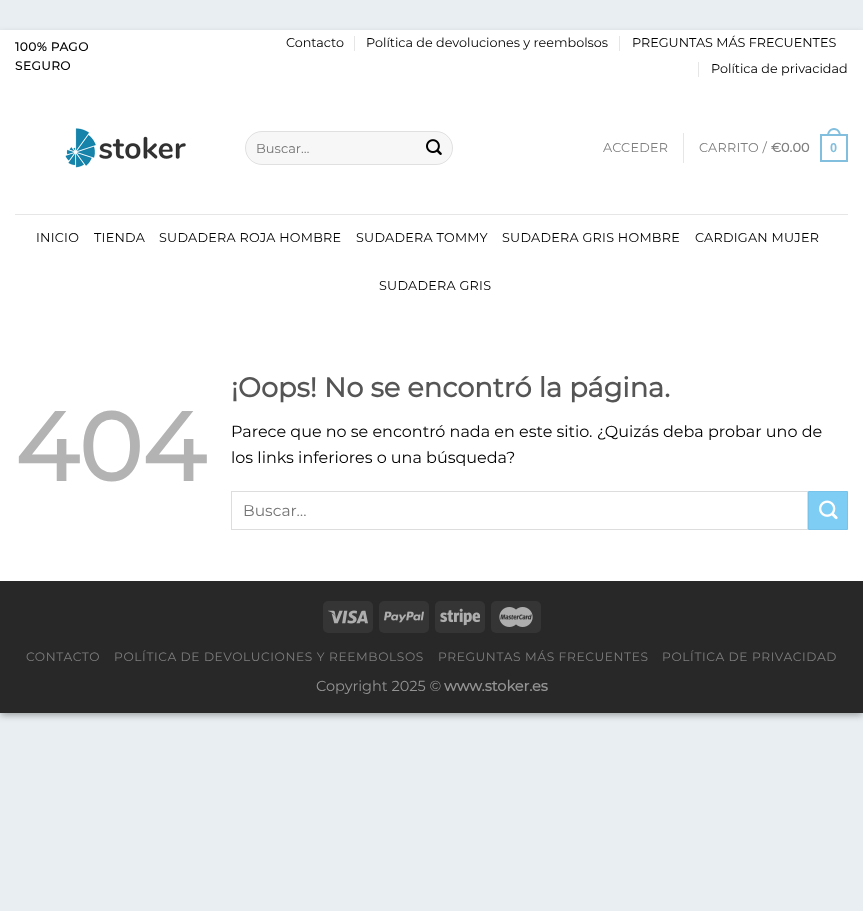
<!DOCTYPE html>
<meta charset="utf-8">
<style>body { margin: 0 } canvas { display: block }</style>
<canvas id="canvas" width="863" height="911"></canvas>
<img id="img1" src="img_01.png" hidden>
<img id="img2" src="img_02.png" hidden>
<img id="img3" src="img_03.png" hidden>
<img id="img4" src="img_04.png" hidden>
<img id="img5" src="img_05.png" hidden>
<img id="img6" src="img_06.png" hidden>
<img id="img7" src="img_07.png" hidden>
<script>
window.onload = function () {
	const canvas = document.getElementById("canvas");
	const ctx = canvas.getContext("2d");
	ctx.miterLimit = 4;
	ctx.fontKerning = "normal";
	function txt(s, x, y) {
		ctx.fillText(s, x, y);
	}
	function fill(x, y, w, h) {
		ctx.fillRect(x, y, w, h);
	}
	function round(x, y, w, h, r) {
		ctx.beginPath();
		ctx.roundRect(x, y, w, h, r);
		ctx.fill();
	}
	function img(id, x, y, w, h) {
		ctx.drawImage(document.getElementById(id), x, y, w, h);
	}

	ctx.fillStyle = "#E8EEF1";
	fill(0, 0, 863, 911);
	ctx.fillStyle = "rgba(0, 0, 0, 0.23)";
	ctx.filter = "blur(3px)";
	ctx.beginPath();
	ctx.rect(0, 33, 863, 683);
	ctx.fill();
	ctx.filter = "none";
	ctx.fillStyle = "rgba(0, 0, 0, 0.16)";
	ctx.filter = "blur(3px)";
	ctx.beginPath();
	ctx.rect(4, 37, 855, 675);
	ctx.fill();
	ctx.filter = "none";
	ctx.fillStyle = "#FFFFFF";
	fill(0, 30, 863, 551);
	ctx.fillStyle = "#E6E6E6";
	fill(354, 36, 1, 15);
	fill(619, 36, 1, 15);
	fill(698, 62, 1, 15);
	img("img1", 65, 128, 121, 40);
	ctx.fillStyle = "#F7F7F7";
	round(245, 131, 208, 34, 17);
	ctx.beginPath();
	ctx.roundRect(245.5, 131.5, 207, 33, 16.5);
	ctx.strokeStyle = "rgba(0, 0, 0, 0.09)";
	ctx.stroke();
	img("img2", 426, 139, 16, 16);
	ctx.fillStyle = "#E6E6E6";
	fill(683, 133, 1, 30);
	ctx.strokeStyle = "#82BEDD";
	ctx.lineWidth = 2;
	ctx.strokeRect(821, 135, 26, 26);
	ctx.fillStyle = "#82BEDD";
	ctx.beginPath();
	ctx.moveTo(834, 128);
	ctx.bezierCurveTo(838.5, 128, 841, 132, 841, 136);
	ctx.lineTo(827, 136);
	ctx.bezierCurveTo(827, 132, 829.5, 128, 834, 128);
	ctx.closePath();
	ctx.moveTo(834, 130);
	ctx.bezierCurveTo(837.5, 130, 839, 133, 839, 136);
	ctx.lineTo(829, 136);
	ctx.bezierCurveTo(829, 133, 830.5, 130, 834, 130);
	ctx.closePath();
	ctx.fill("evenodd");
	ctx.fillStyle = "#E6E6E6";
	fill(15, 214, 833, 1);
	ctx.strokeStyle = "#DDDDDD";
	ctx.lineWidth = 1;
	ctx.strokeRect(231.5, 491.5, 576, 38);
	ctx.fillStyle = "#7ECDF5";
	ctx.beginPath();
	ctx.rect(808.5, 491.5, 39, 38);
	ctx.fill();
	ctx.strokeStyle = "#78C3E9";
	ctx.stroke();
	img("img3", 819, 500, 19, 20);
	ctx.fillStyle = "#282828";
	fill(0, 581, 863, 132);
	ctx.fillStyle = "#353535";
	round(323, 601, 50, 32, 5);
	img("img4", 328, 610, 40, 14);
	round(379, 601, 50, 32, 5);
	img("img5", 384, 611, 40, 12);
	round(435, 601, 50, 32, 5);
	img("img6", 440, 608, 40, 18);
	round(491, 601, 50, 32, 5);
	img("img7", 499, 607, 34, 20);
	ctx.letterSpacing = "0.5px";
	ctx.font = "bold 12px Montserrat";
	ctx.fillStyle = "#000000";
	txt("100% PAGO", 15, 51);
	txt("SEGURO", 15, 70);
	ctx.letterSpacing = "0px";
	ctx.font = "12.75px Montserrat";
	txt("Contacto", 286, 47);
	txt("Política de devoluciones y reembolsos", 366, 47);
	txt("PREGUNTAS MÁS FRECUENTES", 632, 47);
	txt("Política de privacidad", 711, 73);
	ctx.font = "13px Montserrat";
	ctx.fillStyle = "#757575";
	txt("Buscar…", 256, 153);
	ctx.letterSpacing = "0.25px";
	ctx.font = "12.75px Montserrat";
	ctx.fillStyle = "#7E7E7E";
	txt("ACCEDER", 603, 152);
	txt("CARRITO /", 699, 152);
	ctx.font = "bold 12.75px Montserrat";
	txt("€0.00", 771, 152);
	ctx.font = "bold 12.75px Liberation Sans";
	ctx.fillStyle = "#82BEDD";
	txt("0", 830, 152);
	ctx.font = "12.75px Montserrat";
	ctx.fillStyle = "#000000";
	txt("INICIO", 36, 242);
	txt("TIENDA", 94, 242);
	txt("SUDADERA ROJA HOMBRE", 159, 242);
	txt("SUDADERA TOMMY", 356, 242);
	txt("SUDADERA GRIS HOMBRE", 502, 242);
	txt("CARDIGAN MUJER", 695, 242);
	txt("SUDADERA GRIS", 379, 290);
	ctx.letterSpacing = "0px";
	ctx.font = "bold 96px Montserrat";
	ctx.fillStyle = "#B3B3B3";
	txt("404", 15, 481);
	ctx.font = "bold 27.25px Montserrat";
	ctx.fillStyle = "#555555";
	txt("¡Oops! No se encontró la página.", 231, 397);
	ctx.font = "16px Montserrat";
	ctx.fillStyle = "#000000";
	txt("Parece que no se encontró nada en este sitio. ¿Quizás deba probar uno de", 231, 437);
	txt("los links inferiores o una búsqueda?", 231, 463);
	ctx.font = "15.5px Montserrat";
	ctx.fillStyle = "#757575";
	txt("Buscar…", 243, 516);
	ctx.letterSpacing = "0.6px";
	ctx.font = "12.25px Montserrat";
	ctx.fillStyle = "#7E7E7E";
	txt("CONTACTO", 26, 661);
	txt("POLÍTICA DE DEVOLUCIONES Y REEMBOLSOS", 114, 661);
	txt("PREGUNTAS MÁS FRECUENTES", 438, 661);
	txt("POLÍTICA DE PRIVACIDAD", 662, 661);
	ctx.letterSpacing = "0px";
	ctx.font = "14.5px Montserrat";
	ctx.fillStyle = "#949494";
	txt("Copyright 2025 ©", 316, 691);
	ctx.font = "bold 14.5px Montserrat";
	txt("www.stoker.es", 444, 691);
};
</script>
